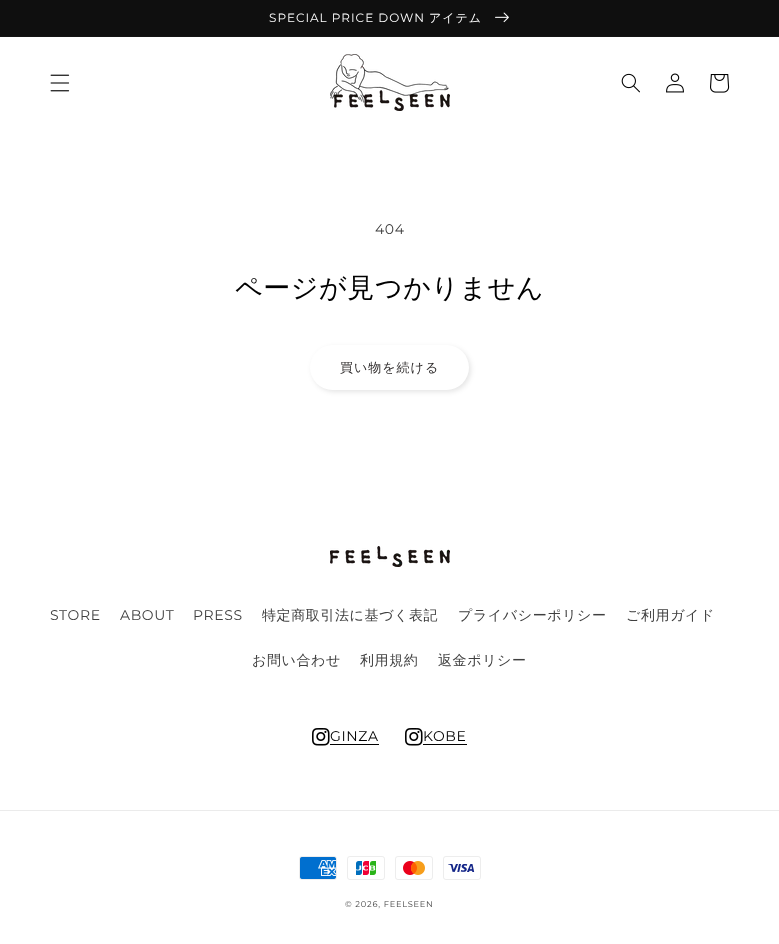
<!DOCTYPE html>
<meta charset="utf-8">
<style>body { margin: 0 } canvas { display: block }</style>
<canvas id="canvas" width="779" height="944"></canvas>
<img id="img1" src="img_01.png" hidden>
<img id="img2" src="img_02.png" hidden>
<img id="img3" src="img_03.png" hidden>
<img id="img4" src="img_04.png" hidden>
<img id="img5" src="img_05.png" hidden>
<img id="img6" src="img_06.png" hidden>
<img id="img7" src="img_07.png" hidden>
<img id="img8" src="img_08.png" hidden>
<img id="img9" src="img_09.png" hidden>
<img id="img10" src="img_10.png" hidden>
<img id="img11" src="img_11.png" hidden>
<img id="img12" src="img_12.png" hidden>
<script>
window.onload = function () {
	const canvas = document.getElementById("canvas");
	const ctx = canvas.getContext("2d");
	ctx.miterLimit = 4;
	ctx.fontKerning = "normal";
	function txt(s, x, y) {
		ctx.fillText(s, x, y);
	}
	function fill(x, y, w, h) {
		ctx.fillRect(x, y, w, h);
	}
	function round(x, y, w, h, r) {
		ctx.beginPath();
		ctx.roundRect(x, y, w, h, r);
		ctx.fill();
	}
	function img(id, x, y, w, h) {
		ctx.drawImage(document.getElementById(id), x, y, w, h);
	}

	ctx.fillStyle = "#FFFFFF";
	fill(0, 0, 779, 944);
	ctx.fillStyle = "#141414";
	fill(0, 36, 779, 1);
	ctx.fillStyle = "#0F0F0F";
	fill(0, 0, 779, 36);
	img("img1", 495, 12, 14, 11);
	img("img2", 50, 74, 20, 18);
	img("img3", 330, 54, 120, 57);
	img("img4", 621, 73, 19, 20);
	img("img5", 666, 73, 18, 20);
	img("img6", 710, 74, 20, 19);
	ctx.fillStyle = "rgba(0, 0, 0, 0.1)";
	ctx.filter = "blur(2.5px)";
	ctx.beginPath();
	ctx.roundRect(312, 347, 159, 45, 22.5);
	ctx.fill();
	ctx.filter = "none";
	ctx.fillStyle = "#FFFFFF";
	round(310, 345, 159, 45, 22.5);
	img("img7", 330, 546, 120, 21);
	img("img8", 312, 728, 18, 18);
	ctx.fillStyle = "#000000";
	fill(330, 744, 49, 1);
	img("img8", 405, 728, 18, 18);
	fill(423, 744, 44, 1);
	ctx.fillStyle = "#EBEBEB";
	fill(0, 810, 779, 1);
	img("img9", 299, 856, 38, 24);
	img("img10", 347, 856, 38, 24);
	img("img11", 395, 856, 38, 24);
	img("img12", 443, 856, 38, 24);
	ctx.letterSpacing = "1px";
	ctx.font = "12px Montserrat";
	ctx.fillStyle = "#FFFFFF";
	txt("SPECIAL PRICE DOWN", 269, 22);
	ctx.font = "500 12px WenQuanYi Zen Hei";
	txt("アイテム", 429, 22);
	ctx.letterSpacing = "0.6px";
	ctx.font = "14px Montserrat";
	ctx.fillStyle = "#404040";
	txt("404", 375, 234);
	ctx.font = "500 27px WenQuanYi Zen Hei";
	ctx.fillStyle = "#000000";
	txt("ページが見つかりません", 235, 297);
	ctx.letterSpacing = "1px";
	ctx.font = "500 13px WenQuanYi Zen Hei";
	ctx.fillStyle = "#302D2D";
	txt("買い物を続ける", 340, 372);
	ctx.letterSpacing = "0.6px";
	ctx.font = "14px Montserrat";
	ctx.fillStyle = "#404040";
	txt("STORE", 50, 620);
	txt("ABOUT", 120, 620);
	txt("PRESS", 193, 620);
	ctx.font = "500 14px WenQuanYi Zen Hei";
	txt("特定商取引法に基づく表記", 262, 620);
	txt("プライバシーポリシー", 458, 620);
	txt("ご利用ガイド", 626, 620);
	txt("お問い合わせ", 252, 665);
	txt("利用規約", 360, 665);
	txt("返金ポリシー", 438, 665);
	ctx.font = "14px Montserrat";
	ctx.fillStyle = "#000000";
	txt("GINZA", 330, 741);
	txt("KOBE", 423, 741);
	ctx.letterSpacing = "0.75px";
	ctx.font = "8.25px Montserrat";
	ctx.fillStyle = "#404040";
	txt("© 2026, FEELSEEN", 345, 907);
};
</script>
